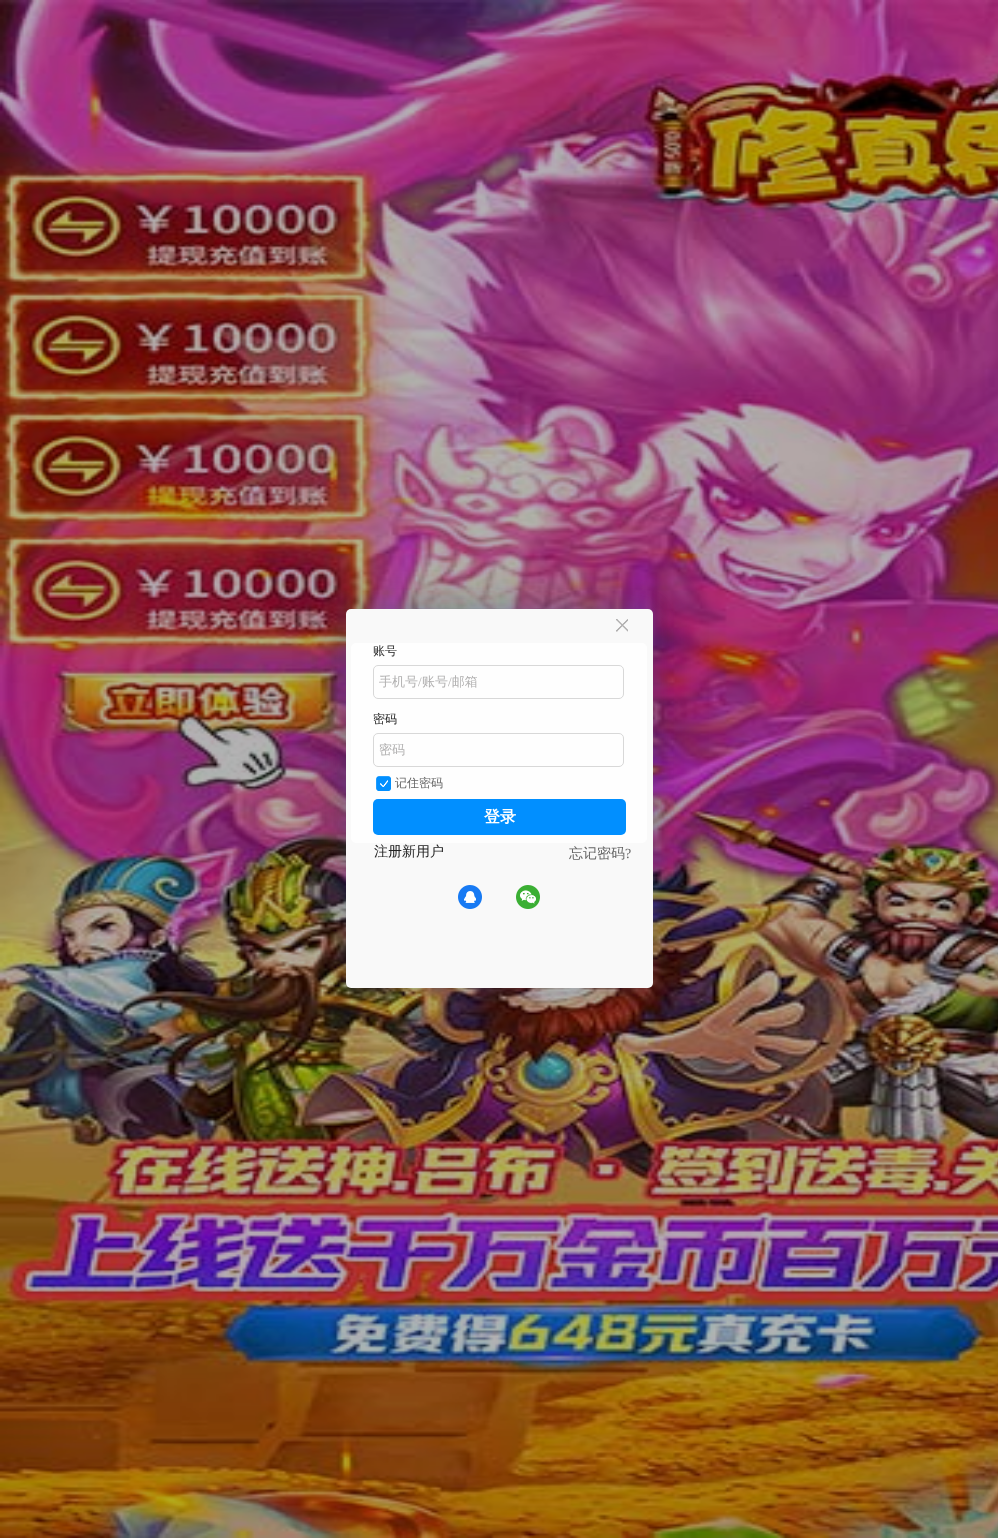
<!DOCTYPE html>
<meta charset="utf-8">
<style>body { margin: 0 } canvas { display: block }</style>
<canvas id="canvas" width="998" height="1538"></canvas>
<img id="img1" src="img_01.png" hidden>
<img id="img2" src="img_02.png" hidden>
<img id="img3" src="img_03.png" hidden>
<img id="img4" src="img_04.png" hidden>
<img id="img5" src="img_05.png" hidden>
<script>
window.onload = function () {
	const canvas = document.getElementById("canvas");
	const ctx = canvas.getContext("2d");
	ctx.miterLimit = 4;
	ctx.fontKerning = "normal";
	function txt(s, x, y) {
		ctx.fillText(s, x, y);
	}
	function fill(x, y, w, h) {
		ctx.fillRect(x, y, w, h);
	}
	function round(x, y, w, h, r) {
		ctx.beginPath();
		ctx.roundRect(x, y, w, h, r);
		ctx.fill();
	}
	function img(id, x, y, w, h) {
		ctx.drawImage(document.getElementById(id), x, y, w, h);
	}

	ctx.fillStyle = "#FFFFFF";
	fill(0, 0, 998, 1538);
	img("img1", 0, 0, 998, 1538);
	ctx.fillStyle = "rgba(0, 0, 0, 0.3)";
	ctx.filter = "blur(25px)";
	ctx.beginPath();
	ctx.roundRect(347, 610, 307, 320, 5);
	ctx.fill();
	ctx.filter = "none";
	ctx.fillStyle = "rgba(86, 157, 236, 0.2)";
	ctx.filter = "blur(10px)";
	ctx.beginPath();
	ctx.roundRect(346, 609, 307, 379, 5);
	ctx.fill();
	ctx.filter = "none";
	ctx.fillStyle = "#F9F9F9";
	round(346, 609, 307, 379, 5);
	ctx.fillStyle = "#FEFEFE";
	round(351, 643, 296, 200, 5);
	img("img2", 616, 619, 12, 13);
	ctx.beginPath();
	ctx.roundRect(373.5, 665.5, 250, 33, 4.5);
	ctx.strokeStyle = "#D8D8D8";
	ctx.stroke();
	ctx.beginPath();
	ctx.roundRect(373.5, 733.5, 250, 33, 4.5);
	ctx.stroke();
	img("img3", 376, 776, 15, 15);
	ctx.fillStyle = "#018FFF";
	round(373, 799, 253, 36, 5);
	img("img4", 458, 885, 24, 24);
	img("img5", 516, 885, 24, 24);
	ctx.font = "500 12px WenQuanYi Zen Hei";
	ctx.fillStyle = "#222222";
	txt("账号", 373, 655);
	ctx.font = "500 13px WenQuanYi Zen Hei";
	ctx.fillStyle = "#B1B0B0";
	txt("手机号 账号 邮箱", 379, 686);
	ctx.font = "13px Liberation Serif";
	txt("/", 418, 686);
	txt("/", 448, 686);
	ctx.font = "500 12px WenQuanYi Zen Hei";
	ctx.fillStyle = "#222222";
	txt("密码", 373, 723);
	ctx.font = "500 13px WenQuanYi Zen Hei";
	ctx.fillStyle = "#B1B0B0";
	txt("密码", 379, 754);
	ctx.font = "500 12px WenQuanYi Zen Hei";
	ctx.fillStyle = "#666666";
	txt("记住密码", 395, 787);
	ctx.font = "bold 16px WenQuanYi Zen Hei";
	ctx.fillStyle = "#FFFFFF";
	txt("登录", 484, 822);
	ctx.font = "500 14px WenQuanYi Zen Hei";
	ctx.fillStyle = "#222222";
	txt("注册新用户", 374, 856);
	ctx.fillStyle = "#666666";
	txt("忘记密码", 569, 858);
	ctx.font = "14px Liberation Serif";
	txt("?", 625, 858);
};
</script>
